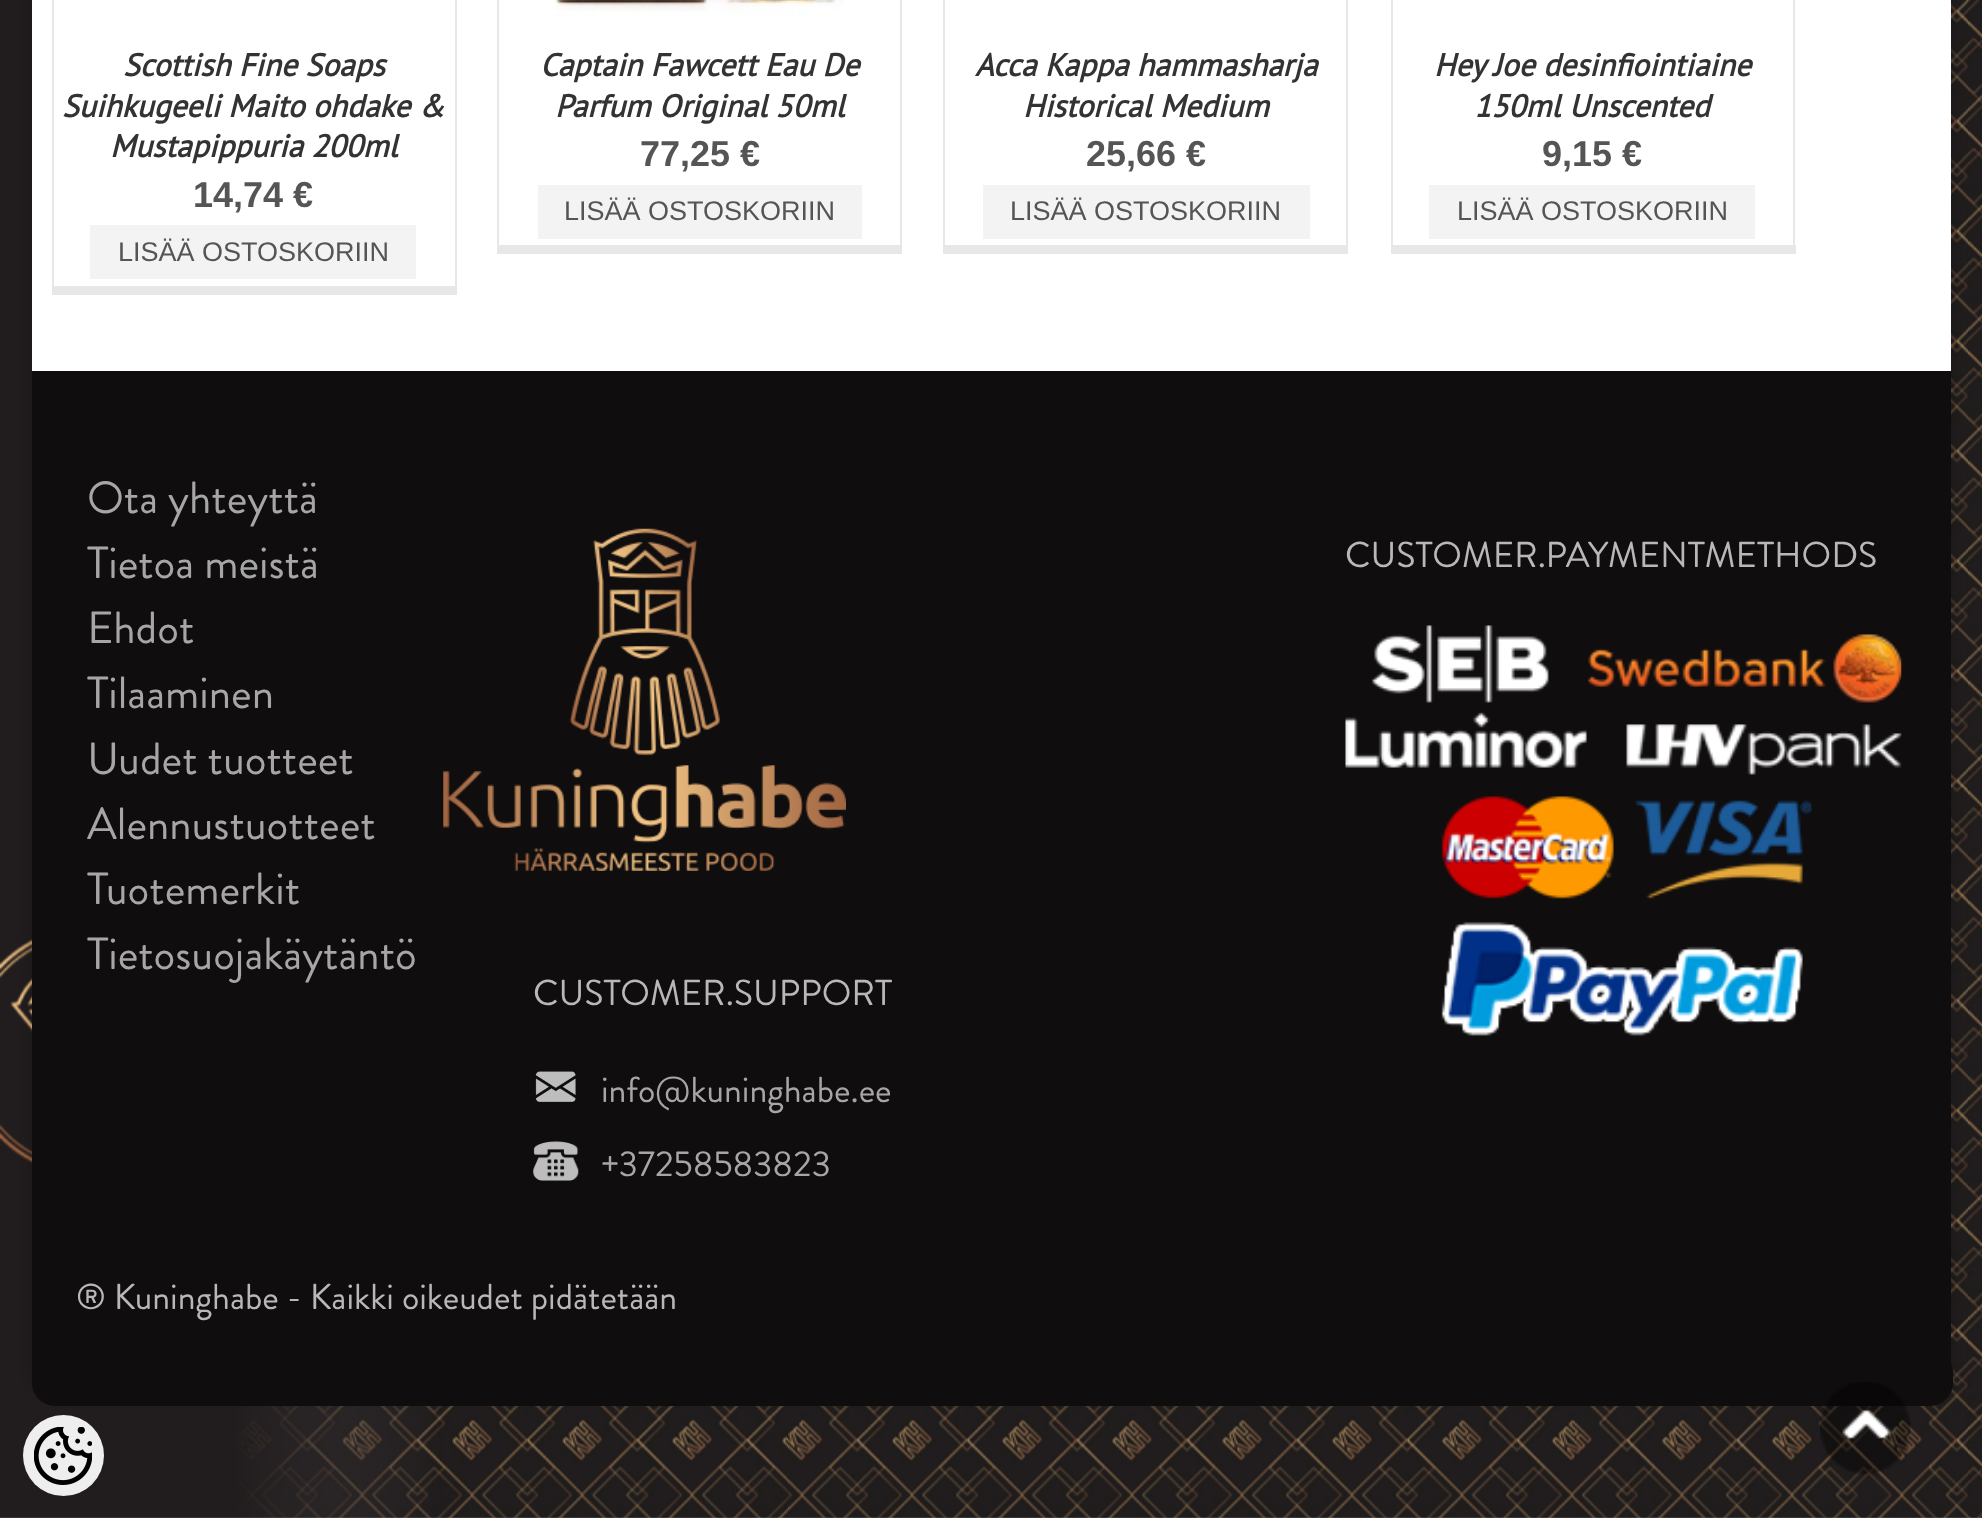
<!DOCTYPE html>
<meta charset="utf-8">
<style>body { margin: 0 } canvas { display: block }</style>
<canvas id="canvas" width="1982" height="1518"></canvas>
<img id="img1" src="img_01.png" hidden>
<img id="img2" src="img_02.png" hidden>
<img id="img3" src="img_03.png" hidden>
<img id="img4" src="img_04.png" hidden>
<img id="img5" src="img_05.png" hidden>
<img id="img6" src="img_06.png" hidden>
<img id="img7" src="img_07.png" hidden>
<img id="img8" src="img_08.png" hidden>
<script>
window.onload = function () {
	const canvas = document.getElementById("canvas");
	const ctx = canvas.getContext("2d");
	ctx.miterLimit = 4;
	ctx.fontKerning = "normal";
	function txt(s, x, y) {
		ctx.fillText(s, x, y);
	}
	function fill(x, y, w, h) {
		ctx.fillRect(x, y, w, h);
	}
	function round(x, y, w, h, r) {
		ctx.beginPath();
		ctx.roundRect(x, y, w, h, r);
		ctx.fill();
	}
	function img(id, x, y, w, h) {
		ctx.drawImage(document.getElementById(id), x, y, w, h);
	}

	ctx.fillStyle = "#FFFFFF";
	fill(0, 0, 1982, 1518);
	img("img1", 0, 0, 1982, 1518);
	ctx.fillStyle = "rgba(0, 0, 0, 0.1)";
	ctx.filter = "blur(4.5px)";
	ctx.beginPath();
	ctx.roundRect(27, -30, 1928, 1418, 16);
	ctx.fill();
	ctx.filter = "none";
	ctx.fillStyle = "#FFFFFF";
	fill(32, 0, 1919, 371);
	ctx.fillStyle = "#E7E7E7";
	fill(455, 0, 2, 286);
	fill(54, 286, 403, 9);
	fill(52, 0, 2, 295);
	ctx.fillStyle = "#F3F3F3";
	fill(90, 225, 326, 54);
	ctx.fillStyle = "#E7E7E7";
	fill(900, 0, 2, 245);
	fill(499, 245, 403, 9);
	fill(497, 0, 2, 254);
	img("img2", 553, 0, 291, 16);
	ctx.fillStyle = "#F3F3F3";
	fill(538, 185, 324, 54);
	ctx.fillStyle = "#E7E7E7";
	fill(1346, 0, 2, 245);
	fill(945, 245, 403, 9);
	fill(943, 0, 2, 254);
	ctx.fillStyle = "#FDFDFA";
	fill(1228, 0, 1, 1);
	ctx.fillStyle = "#F3F3F3";
	fill(983, 185, 327, 54);
	ctx.fillStyle = "#E7E7E7";
	fill(1793, 0, 2, 245);
	fill(1393, 245, 403, 9);
	fill(1391, 0, 2, 254);
	ctx.fillStyle = "#FEFFFA";
	fill(1611, 1, 2, 1);
	ctx.fillStyle = "#F3F3F3";
	fill(1429, 185, 326, 54);
	ctx.fillStyle = "#0F0D0E";
	fill(32, 371, 1919, 1013);
	img("img3", 1345, 625, 557, 411);
	img("img4", 443, 528, 403, 343);
	img("img5", 535, 1071, 41, 31);
	img("img6", 533, 1141, 46, 40);
	round(32, 1350, 1921, 56, 23);
	ctx.fillStyle = "#EEEEEE";
	ctx.beginPath();
	ctx.arc(63.5, 1455.5, 40.5, 0, Math.PI * 2);
	ctx.fill();
	img("img7", 34, 1427, 58, 58);
	img("img8", 1820, 1382, 91, 93);
	ctx.font = "italic bold 31.5px PT Sans";
	ctx.fillStyle = "#333333";
	txt("Scottish Fine Soaps", 123, 76);
	txt("Suihkugeeli Maito ohdake &", 62, 117);
	txt("Mustapippuria 200ml", 110, 157);
	ctx.font = "bold 36px Liberation Sans";
	ctx.fillStyle = "#555555";
	txt("14,74 €", 193, 207);
	ctx.font = "27px Liberation Sans";
	txt("LISÄÄ OSTOSKORIIN", 118, 261);
	ctx.font = "italic bold 31.5px PT Sans";
	ctx.fillStyle = "#333333";
	txt("Captain Fawcett Eau De", 540, 76);
	txt("Parfum Original 50ml", 555, 117);
	ctx.font = "bold 36px Liberation Sans";
	ctx.fillStyle = "#555555";
	txt("77,25 €", 640, 166);
	ctx.font = "27px Liberation Sans";
	txt("LISÄÄ OSTOSKORIIN", 564, 220);
	ctx.font = "italic bold 31.5px PT Sans";
	ctx.fillStyle = "#333333";
	txt("Acca Kappa hammasharja", 975, 76);
	txt("Historical Medium", 1023, 117);
	ctx.font = "bold 36px Liberation Sans";
	ctx.fillStyle = "#555555";
	txt("25,66 €", 1086, 166);
	ctx.font = "27px Liberation Sans";
	txt("LISÄÄ OSTOSKORIIN", 1010, 220);
	ctx.font = "italic bold 31.5px PT Sans";
	ctx.fillStyle = "#333333";
	txt("Hey Joe desinfiointiaine", 1434, 76);
	txt("150ml Unscented", 1474, 117);
	ctx.font = "bold 36px Liberation Sans";
	ctx.fillStyle = "#555555";
	txt("9,15 €", 1542, 166);
	ctx.font = "27px Liberation Sans";
	txt("LISÄÄ OSTOSKORIIN", 1457, 220);
	ctx.font = "45px Brandon Grotesque";
	ctx.fillStyle = "#A6A6A5";
	txt("Ota yhteyttä", 87, 513);
	txt("Tietoa meistä", 87, 578);
	txt("Ehdot", 87, 643);
	txt("Tilaaminen", 87, 708);
	txt("Uudet tuotteet", 87, 774);
	txt("Alennustuotteet", 87, 839);
	txt("Tuotemerkit", 87, 904);
	txt("Tietosuojakäytäntö", 87, 969);
	ctx.font = "36px Brandon Grotesque";
	ctx.fillStyle = "#B8B8B8";
	txt("CUSTOMER.PAYMENTMETHODS", 1345, 567);
	txt("CUSTOMER.SUPPORT", 533, 1005);
	ctx.fillStyle = "#A6A6A5";
	txt("info@kuninghabe.ee", 601, 1102);
	txt("+37258583823", 601, 1176);
	ctx.fillStyle = "#B8B8B8";
	txt("® Kuninghabe - Kaikki oikeudet pidätetään", 76, 1309);
};
</script>
